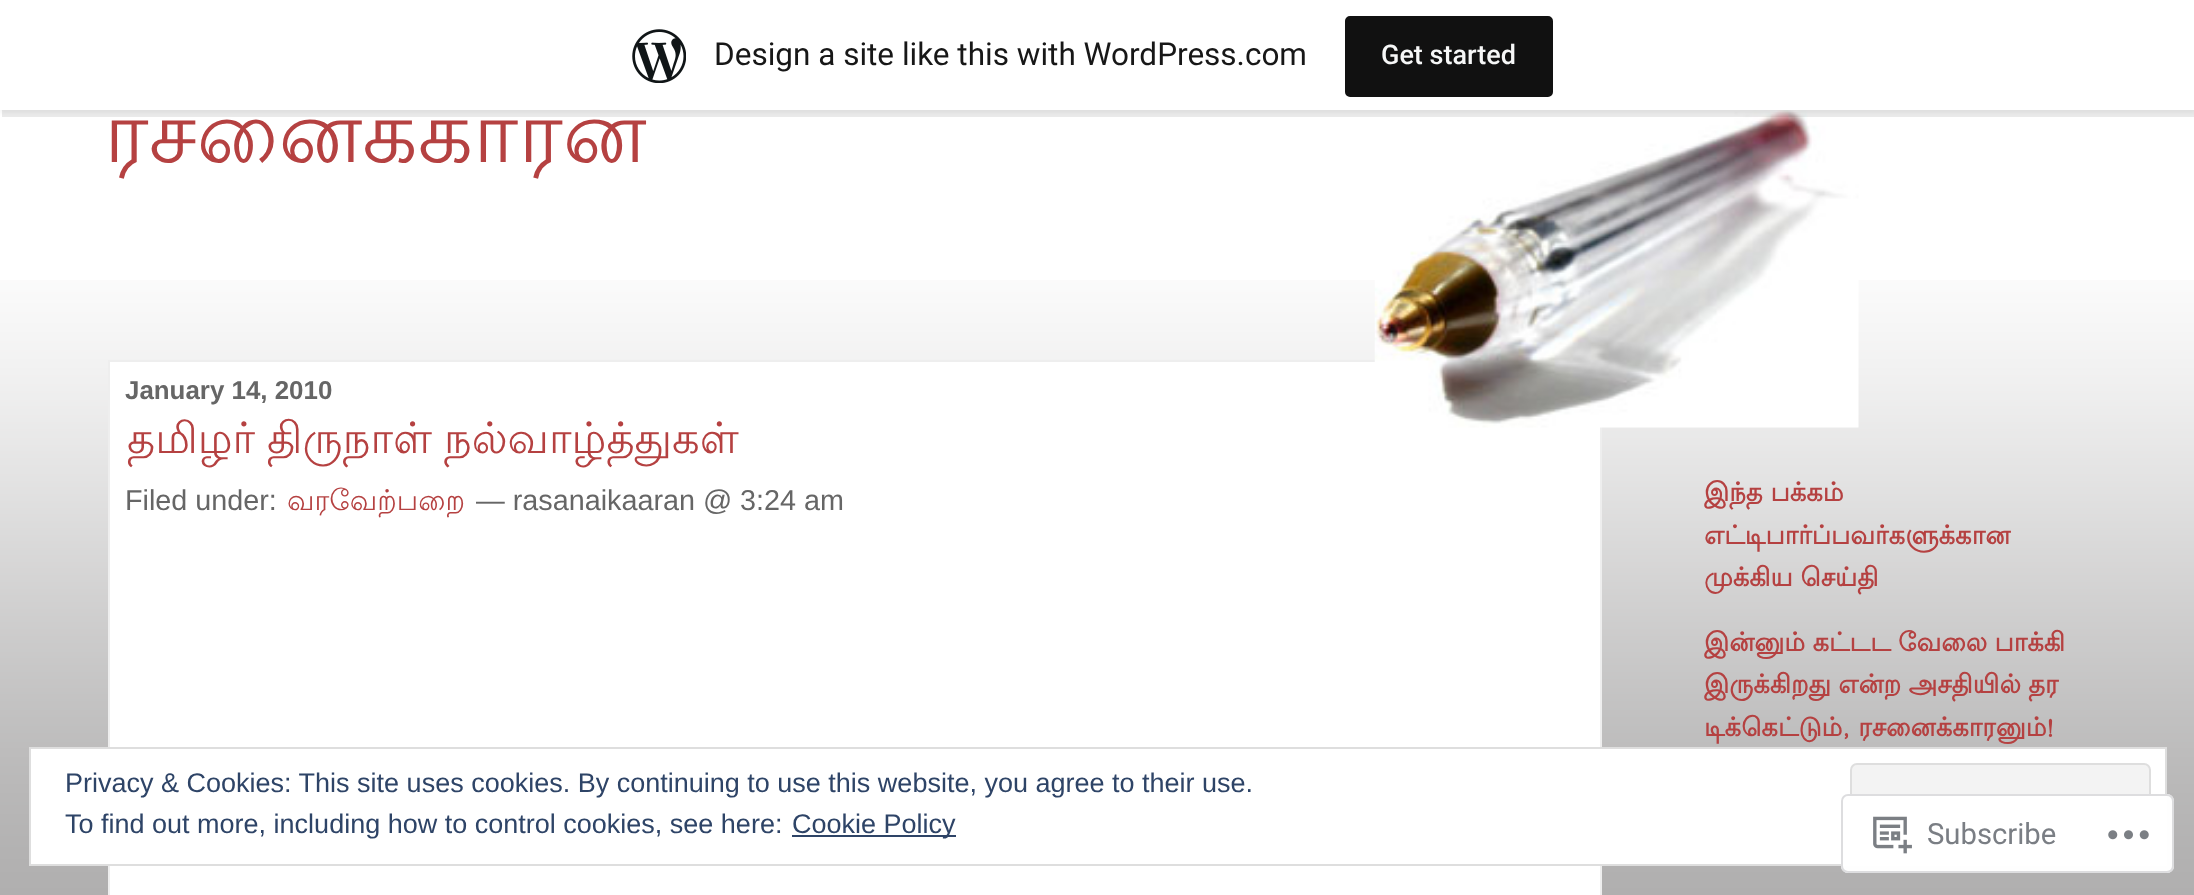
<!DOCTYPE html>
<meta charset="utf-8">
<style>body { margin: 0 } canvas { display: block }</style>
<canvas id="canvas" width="2194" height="895"></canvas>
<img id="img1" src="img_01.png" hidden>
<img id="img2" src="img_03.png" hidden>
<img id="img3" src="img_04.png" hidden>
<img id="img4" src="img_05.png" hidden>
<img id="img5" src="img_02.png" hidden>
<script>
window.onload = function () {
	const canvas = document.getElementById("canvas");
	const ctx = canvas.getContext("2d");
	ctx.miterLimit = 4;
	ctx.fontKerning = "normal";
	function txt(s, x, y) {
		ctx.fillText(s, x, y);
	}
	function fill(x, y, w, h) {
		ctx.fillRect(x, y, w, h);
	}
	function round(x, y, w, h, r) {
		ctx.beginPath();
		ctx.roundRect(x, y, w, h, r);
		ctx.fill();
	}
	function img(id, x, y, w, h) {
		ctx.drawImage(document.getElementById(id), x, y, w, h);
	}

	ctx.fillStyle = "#FFFFFF";
	fill(0, 0, 2194, 895);
	img("img1", 0, 280, 2194, 615);
	ctx.beginPath();
	ctx.rect(109, 361, 1492, 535);
	ctx.fill();
	ctx.strokeStyle = "#EEEEEE";
	ctx.lineWidth = 2;
	ctx.stroke();
	img("img2", 1374, 110, 485, 318);
	ctx.fillStyle = "rgba(0, 0, 0, 0.05)";
	ctx.filter = "blur(2px)";
	ctx.beginPath();
	ctx.rect(0, 2, 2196, 111);
	ctx.fill();
	ctx.filter = "none";
	ctx.fillStyle = "rgba(0, 0, 0, 0.08)";
	ctx.beginPath();
	ctx.moveTo(2, 110);
	ctx.lineTo(2, 117);
	ctx.lineTo(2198, 117);
	ctx.lineTo(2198, 7);
	ctx.lineTo(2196, 7);
	ctx.lineTo(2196, 110);
	ctx.closePath();
	ctx.fill();
	ctx.fillStyle = "#FFFFFF";
	ctx.beginPath();
	ctx.rect(30, 748, 2136, 117);
	ctx.fill();
	ctx.strokeStyle = "#DEDEDE";
	ctx.stroke();
	ctx.fillStyle = "#F3F3F3";
	ctx.beginPath();
	ctx.roundRect(1851, 764, 299, 86, 6);
	ctx.fill();
	ctx.stroke();
	ctx.fillStyle = "#2E4467";
	fill(792, 835, 164, 2);
	ctx.fillStyle = "rgba(255, 255, 255, 0.98)";
	round(1841, 794, 333, 79, 7);
	ctx.beginPath();
	ctx.roundRect(1842, 795, 331, 77, 6);
	ctx.strokeStyle = "rgba(220, 220, 222, 0.98)";
	ctx.stroke();
	img("img3", 1873, 816, 39, 38);
	img("img4", 2108, 830, 41, 10);
	ctx.font = "86.5px Lohit Tamil";
	ctx.fillStyle = "#B54141";
	txt("ரசனைக்காரன்", 104, 162);
	ctx.fillStyle = "#FFFFFF";
	fill(0, 0, 2194, 110);
	img("img5", 632, 29, 54, 54);
	ctx.font = "31.5px Roboto";
	ctx.fillStyle = "#171717";
	txt("Design a site like this with WordPress.com", 714, 65);
	ctx.fillStyle = "#111111";
	ctx.beginPath();
	ctx.roundRect(1344, 15, 210, 83, 6);
	ctx.fill();
	ctx.strokeStyle = "#FFFFFF";
	ctx.stroke();
	ctx.font = "500 27px Roboto";
	ctx.fillStyle = "#F6F7F7";
	txt("Get started", 1381, 64);
	ctx.font = "bold 25.9px Liberation Sans";
	ctx.fillStyle = "#666666";
	txt("January 14, 2010", 125, 399);
	ctx.wordSpacing = "-1px";
	ctx.font = "43.25px Lohit Tamil";
	ctx.fillStyle = "#B54141";
	txt("தமிழர் திருநாள் நல்வாழ்த்துகள்", 127, 453);
	ctx.wordSpacing = "0px";
	ctx.font = "28.75px Liberation Sans";
	ctx.fillStyle = "#666666";
	txt("Filed under:", 125, 510);
	ctx.font = "28.75px Lohit Tamil";
	ctx.fillStyle = "#B54141";
	txt("வரவேற்பறை", 287, 510);
	ctx.font = "28.75px Liberation Sans";
	ctx.fillStyle = "#666666";
	txt("— rasanaikaaran @ 3:24 am", 476, 510);
	ctx.font = "bold 25.9px Lohit Tamil";
	ctx.fillStyle = "#B54141";
	txt("இந்த பக்கம்", 1704, 501);
	txt("எட்டிபார்ப்பவர்களுக்கான", 1704, 544);
	txt("முக்கிய செய்தி", 1704, 586);
	ctx.wordSpacing = "-0.5px";
	txt("இன்னும் கட்டட வேலை பாக்கி", 1704, 651);
	txt("இருக்கிறது என்ற அசதியில் தர", 1704, 693);
	ctx.wordSpacing = "1px";
	txt("டிக்கெட்டும், ரசனைக்காரனும்!", 1704, 736);
	ctx.wordSpacing = "0px";
	ctx.font = "27px Liberation Sans";
	ctx.fillStyle = "#2E4467";
	txt("Privacy & Cookies: This site uses cookies. By continuing to use this website, you agree to their use.", 65, 792);
	txt("To find out more, including how to control cookies, see here:", 65, 833);
	txt("Cookie Policy", 792, 833);
	ctx.font = "29.25px Roboto";
	ctx.fillStyle = "#7A7E84";
	txt("Subscribe", 1927, 844);
};
</script>
